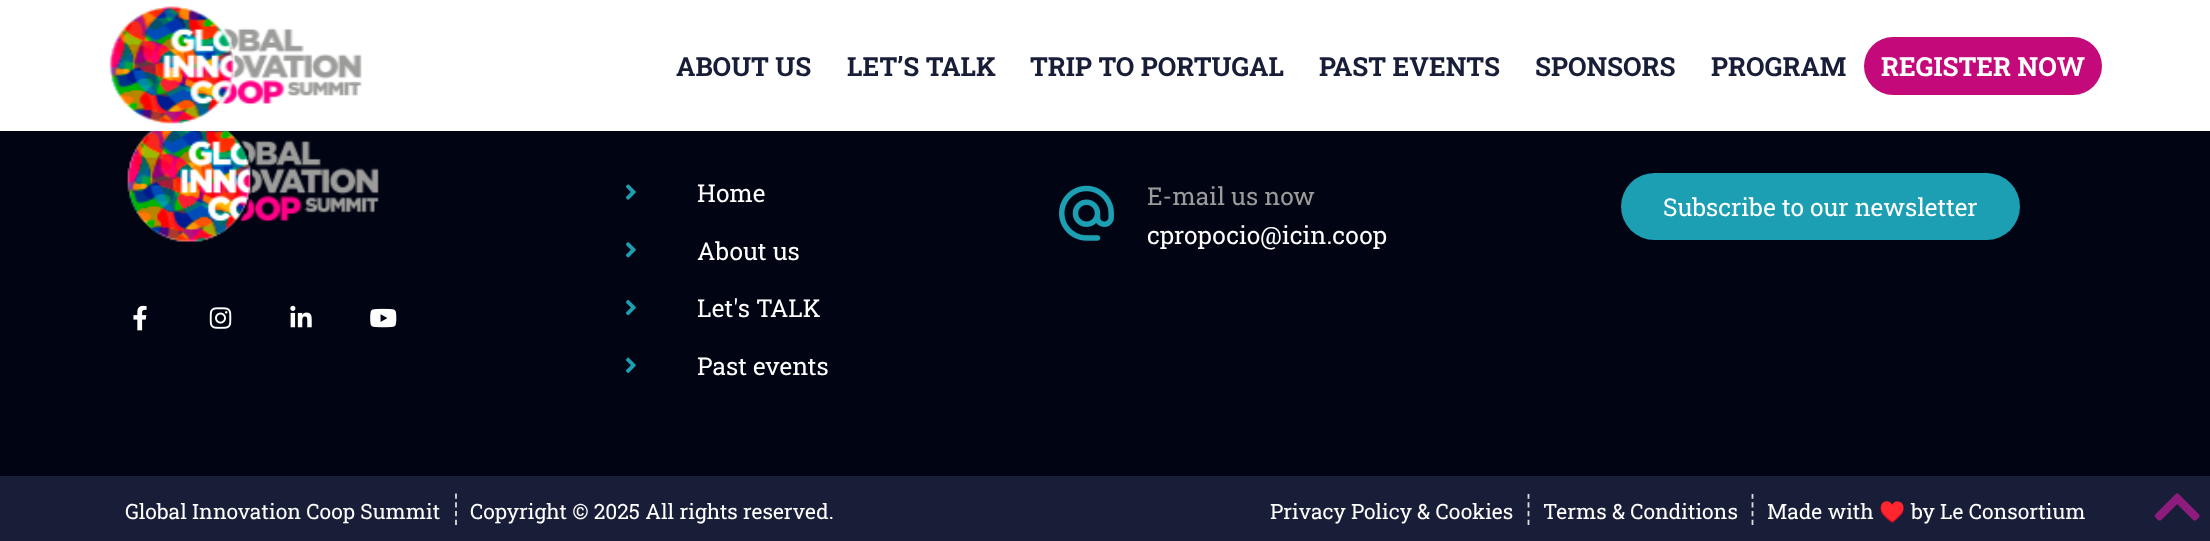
<!DOCTYPE html>
<meta charset="utf-8">
<style>body { margin: 0 } canvas { display: block }</style>
<canvas id="canvas" width="2210" height="541"></canvas>
<img id="img1" src="img_01.png" hidden>
<img id="img2" src="img_02.png" hidden>
<img id="img3" src="img_03.png" hidden>
<img id="img4" src="img_04.png" hidden>
<img id="img5" src="img_05.png" hidden>
<img id="img6" src="img_06.png" hidden>
<img id="img7" src="img_07.png" hidden>
<img id="img8" src="img_08.png" hidden>
<img id="img9" src="img_09.png" hidden>
<img id="img10" src="img_10.png" hidden>
<img id="img11" src="img_11.png" hidden>
<img id="img12" src="img_12.png" hidden>
<script>
window.onload = function () {
	const canvas = document.getElementById("canvas");
	const ctx = canvas.getContext("2d");
	ctx.miterLimit = 4;
	ctx.fontKerning = "normal";
	function txt(s, x, y) {
		ctx.fillText(s, x, y);
	}
	function fill(x, y, w, h) {
		ctx.fillRect(x, y, w, h);
	}
	function round(x, y, w, h, r) {
		ctx.beginPath();
		ctx.roundRect(x, y, w, h, r);
		ctx.fill();
	}
	function img(id, x, y, w, h) {
		ctx.drawImage(document.getElementById(id), x, y, w, h);
	}

	ctx.fillStyle = "#000413";
	fill(0, 0, 2210, 541);
	ctx.fillStyle = "#FFFFFF";
	fill(0, 0, 2210, 131);
	img("img1", 109, 6, 253, 118);
	ctx.fillStyle = "#C4097A";
	round(1864, 37, 238, 58, 29);
	img("img2", 127, 131, 252, 111);
	img("img3", 133, 305, 14, 26);
	img("img4", 209, 307, 23, 22);
	img("img5", 290, 305, 22, 23);
	img("img6", 370, 308, 27, 20);
	img("img7", 626, 184, 10, 16);
	img("img8", 626, 242, 10, 16);
	img("img9", 626, 299, 10, 17);
	img("img10", 626, 357, 10, 16);
	img("img11", 1059, 185, 55, 56);
	ctx.fillStyle = "#1C9FB2";
	round(1621, 173, 399, 67, 33.5);
	ctx.fillStyle = "#181D38";
	fill(0, 476, 2210, 65);
	ctx.beginPath();
	ctx.moveTo(456, 493.5);
	ctx.lineTo(456, 525);
	ctx.strokeStyle = "#DDDDDD";
	ctx.lineWidth = 1.8;
	ctx.setLineDash([5.25, 3.5]);
	ctx.stroke();
	ctx.save();
	ctx.beginPath();
	ctx.rect(1269, 494, 817, 31);
	ctx.clip();
	ctx.beginPath();
	ctx.moveTo(1528.5, 493.5);
	ctx.lineTo(1528.5, 525);
	ctx.stroke();
	ctx.beginPath();
	ctx.moveTo(1752.5, 493.5);
	ctx.lineTo(1752.5, 525);
	ctx.stroke();
	ctx.restore();
	img("img12", 2154, 493, 46, 28);
	ctx.font = "bold 26.25px Roboto Slab";
	txt("ABOUT US", 676, 76);
	txt("LET’S TALK", 847, 76);
	txt("TRIP TO PORTUGAL", 1030, 76);
	txt("PAST EVENTS", 1319, 76);
	txt("SPONSORS", 1535, 76);
	txt("PROGRAM", 1711, 76);
	ctx.fillStyle = "#FFFFFF";
	txt("REGISTER NOW", 1881, 76);
	ctx.font = "24.5px Roboto Slab";
	txt("Home", 697, 202);
	txt("About us", 697, 260);
	txt("Let's TALK", 697, 317);
	txt("Past events", 697, 375);
	ctx.fillStyle = "#9B9B9B";
	txt("E-mail us now", 1147, 205);
	ctx.fillStyle = "#FFFFFF";
	txt("cpropocio@icin.coop", 1147, 244);
	txt("Subscribe to our newsletter", 1663, 216);
	ctx.font = "21px Roboto Slab";
	txt("Global Innovation Coop Summit", 125, 519);
	txt("Copyright © 2025 All rights reserved.", 470, 519);
	txt("Privacy Policy & Cookies", 1270, 519);
	txt("Terms & Conditions", 1543, 519);
	txt("Made with", 1767, 519);
	ctx.font = "21px Noto Color Emoji";
	txt("♥️", 1879, 519);
	ctx.font = "21px Roboto Slab";
	txt("by Le Consortium", 1911, 519);
};
</script>
